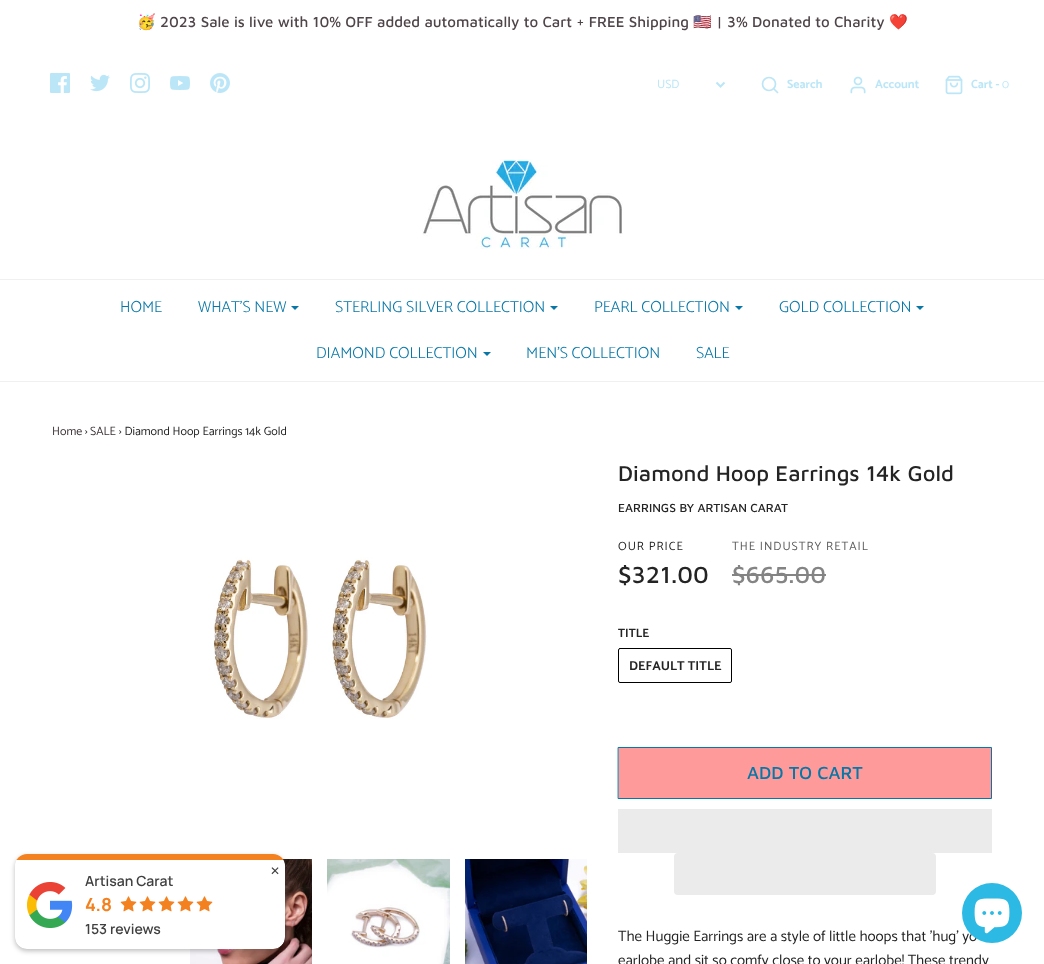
<!DOCTYPE html>
<meta charset="utf-8">
<style>body { margin: 0 } canvas { display: block }</style>
<canvas id="canvas" width="1044" height="964"></canvas>
<img id="img1" src="img_01.png" hidden>
<img id="img2" src="img_02.png" hidden>
<img id="img3" src="img_03.png" hidden>
<img id="img4" src="img_04.png" hidden>
<img id="img5" src="img_05.png" hidden>
<img id="img6" src="img_06.png" hidden>
<img id="img7" src="img_07.png" hidden>
<img id="img8" src="img_08.png" hidden>
<img id="img9" src="img_09.png" hidden>
<img id="img10" src="img_10.png" hidden>
<img id="img11" src="img_11.png" hidden>
<img id="img12" src="img_12.png" hidden>
<img id="img13" src="img_13.png" hidden>
<img id="img14" src="img_14.png" hidden>
<img id="img15" src="img_15.png" hidden>
<script>
window.onload = function () {
	const canvas = document.getElementById("canvas");
	const ctx = canvas.getContext("2d");
	ctx.miterLimit = 4;
	ctx.fontKerning = "normal";
	function txt(s, x, y) {
		ctx.fillText(s, x, y);
	}
	function fill(x, y, w, h) {
		ctx.fillRect(x, y, w, h);
	}
	function round(x, y, w, h, r) {
		ctx.beginPath();
		ctx.roundRect(x, y, w, h, r);
		ctx.fill();
	}
	function img(id, x, y, w, h) {
		ctx.drawImage(document.getElementById(id), x, y, w, h);
	}

	ctx.fillStyle = "#FFFFFF";
	fill(0, 0, 1044, 964);
	img("img1", 50, 73, 20, 20);
	img("img2", 90, 74, 20, 18);
	img("img3", 130, 73, 20, 20);
	img("img4", 170, 76, 20, 14);
	img("img5", 210, 73, 20, 20);
	ctx.beginPath();
	ctx.moveTo(716.5, 82.5);
	ctx.lineTo(720.5, 86.5);
	ctx.lineTo(724.5, 82.5);
	ctx.strokeStyle = "#BBE6F7";
	ctx.lineWidth = 2;
	ctx.stroke();
	ctx.beginPath();
	ctx.arc(769, 84, 6.5, 0, Math.PI * 2);
	ctx.lineWidth = 1.7;
	ctx.stroke();
	ctx.beginPath();
	ctx.moveTo(777.5, 92.5);
	ctx.lineTo(774, 89);
	ctx.lineCap = "round";
	ctx.lineJoin = "round";
	ctx.stroke();
	img("img6", 850, 76, 16, 18);
	img("img7", 945, 75, 18, 20);
	img("img8", 422, 159, 201, 90);
	ctx.fillStyle = "#F0F0F0";
	fill(0, 279, 1044, 1);
	fill(0, 381, 1044, 1);
	ctx.fillStyle = "#0777A7";
	ctx.beginPath();
	ctx.moveTo(291, 306);
	ctx.lineTo(299, 306);
	ctx.lineTo(295, 310);
	ctx.closePath();
	ctx.fill();
	ctx.beginPath();
	ctx.moveTo(550, 306);
	ctx.lineTo(558, 306);
	ctx.lineTo(554, 310);
	ctx.closePath();
	ctx.fill();
	ctx.beginPath();
	ctx.moveTo(735, 306);
	ctx.lineTo(743, 306);
	ctx.lineTo(739, 310);
	ctx.closePath();
	ctx.fill();
	ctx.beginPath();
	ctx.moveTo(916, 306);
	ctx.lineTo(924, 306);
	ctx.lineTo(920, 310);
	ctx.closePath();
	ctx.fill();
	ctx.beginPath();
	ctx.moveTo(483, 352);
	ctx.lineTo(491, 352);
	ctx.lineTo(487, 356);
	ctx.closePath();
	ctx.fill();
	img("img9", 213, 557, 215, 162);
	img("img10", 190, 859, 122, 105);
	img("img11", 327, 859, 123, 105);
	img("img12", 465, 859, 122, 105);
	ctx.fillStyle = "#848484";
	fill(732, 574, 94, 2);
	ctx.beginPath();
	ctx.roundRect(618.5, 648.5, 113, 34, 1.5);
	ctx.strokeStyle = "#000000";
	ctx.lineWidth = 1;
	ctx.lineJoin = "miter";
	ctx.stroke();
	ctx.fillStyle = "#FF9A9A";
	ctx.beginPath();
	ctx.rect(618.5, 747.5, 373, 51);
	ctx.fill();
	ctx.strokeStyle = "#0777A7";
	ctx.stroke();
	ctx.fillStyle = "#EBEBEB";
	fill(618, 809, 374, 44);
	round(674, 853, 262, 42, 4);
	ctx.fillStyle = "rgba(0, 0, 0, 0.26)";
	ctx.filter = "blur(2.5px)";
	ctx.beginPath();
	ctx.roundRect(15, 856, 270, 95, 12);
	ctx.fill();
	ctx.filter = "none";
	ctx.save();
	ctx.beginPath();
	ctx.roundRect(15, 854, 270, 95, 12);
	ctx.clip();
	ctx.fillStyle = "#F48120";
	fill(15, 854, 270, 6);
	ctx.fillStyle = "#FFFFFF";
	ctx.beginPath();
	ctx.roundRect(15, 860, 270, 89, [0, 0, 12, 12]);
	ctx.fill();
	ctx.restore();
	img("img13", 27, 882, 46, 46);
	img("img14", 120, 896, 17, 16);
	img("img14", 139, 896, 17, 16);
	img("img14", 158, 896, 17, 16);
	img("img14", 177, 896, 17, 16);
	img("img14", 196, 896, 17, 16);
	ctx.font = "15px Noto Color Emoji";
	ctx.fillStyle = "#4E4449";
	txt("🥳", 137, 27);
	ctx.font = "500 15px Maven Pro";
	txt("2023 Sale is live with 10% OFF added automatically to Cart + FREE Shipping", 160, 27);
	ctx.font = "15px Noto Color Emoji";
	txt("🇺🇸", 693, 27);
	ctx.font = "500 15px Maven Pro";
	txt("| 3% Donated to Charity", 716, 27);
	ctx.font = "15px Noto Color Emoji";
	txt("❤️", 889, 27);
	ctx.font = "12px Catamaran";
	ctx.fillStyle = "#BBE6F7";
	txt("USD", 657, 88);
	ctx.font = "bold 12px Catamaran";
	txt("Search", 787, 88);
	txt("Account", 875, 88);
	txt("Cart -", 971, 88);
	ctx.font = "300 12px Catamaran";
	txt("0", 1002, 88);
	ctx.font = "300 16px Catamaran";
	ctx.fillStyle = "#0777A7";
	txt("HOME", 120, 312);
	txt("WHAT'S NEW", 198, 312);
	txt("STERLING SILVER COLLECTION", 335, 312);
	txt("PEARL COLLECTION", 594, 312);
	txt("GOLD COLLECTION", 779, 312);
	txt("DIAMOND COLLECTION", 316, 358);
	txt("MEN'S COLLECTION", 526, 358);
	txt("SALE", 696, 358);
	ctx.font = "12px Catamaran";
	ctx.fillStyle = "#3D3337";
	txt("Home", 52, 435);
	ctx.fillStyle = "#242424";
	txt("›", 85, 435);
	ctx.fillStyle = "#3D3337";
	txt("SALE", 90, 435);
	ctx.fillStyle = "#242424";
	txt("› Diamond Hoop Earrings 14k Gold", 119, 435);
	ctx.font = "500 22px Maven Pro";
	txt("Diamond Hoop Earrings 14k Gold", 618, 481);
	ctx.font = "500 12px Maven Pro";
	txt("EARRINGS BY ARTISAN CARAT", 618, 512);
	ctx.letterSpacing = "1px";
	ctx.font = "12px Catamaran";
	txt("OUR PRICE", 618, 550);
	ctx.letterSpacing = "0px";
	ctx.font = "500 24px Maven Pro";
	txt("$321.00", 618, 583);
	ctx.letterSpacing = "1px";
	ctx.font = "12px Catamaran";
	ctx.fillStyle = "#5B5B5B";
	txt("THE INDUSTRY RETAIL", 732, 550);
	ctx.letterSpacing = "0px";
	ctx.font = "500 24px Maven Pro";
	ctx.fillStyle = "#848484";
	txt("$665.00", 732, 583);
	ctx.font = "bold 12px Catamaran";
	ctx.fillStyle = "#242424";
	txt("TITLE", 618, 637);
	ctx.font = "bold 13px Catamaran";
	txt("DEFAULT TITLE", 629, 670);
	ctx.font = "500 18px Maven Pro";
	ctx.fillStyle = "#0777A7";
	txt("ADD TO CART", 747, 779);
	ctx.font = "15px Catamaran";
	ctx.fillStyle = "#242424";
	txt("The Huggie Earrings are a style of little hoops that 'hug' yo", 618, 941);
	txt("earlobe and sit so comfy close to your earlobe! These trendy", 618, 965);
	ctx.font = "12px DejaVu Sans";
	ctx.fillStyle = "#404040";
	txt("✕", 270, 875);
	ctx.font = "600 14px Manrope";
	txt("Artisan Carat", 85, 886);
	ctx.font = "bold 18px Manrope";
	ctx.fillStyle = "#F48120";
	txt("4.8", 85, 911);
	ctx.font = "600 14px Manrope";
	ctx.fillStyle = "#404040";
	txt("153 reviews", 85, 934);
	ctx.fillStyle = "#2CBAE4";
	ctx.beginPath();
	ctx.arc(992, 913, 30, 0, Math.PI * 2);
	ctx.fill();
	img("img15", 974, 898, 36, 36);
};
</script>
